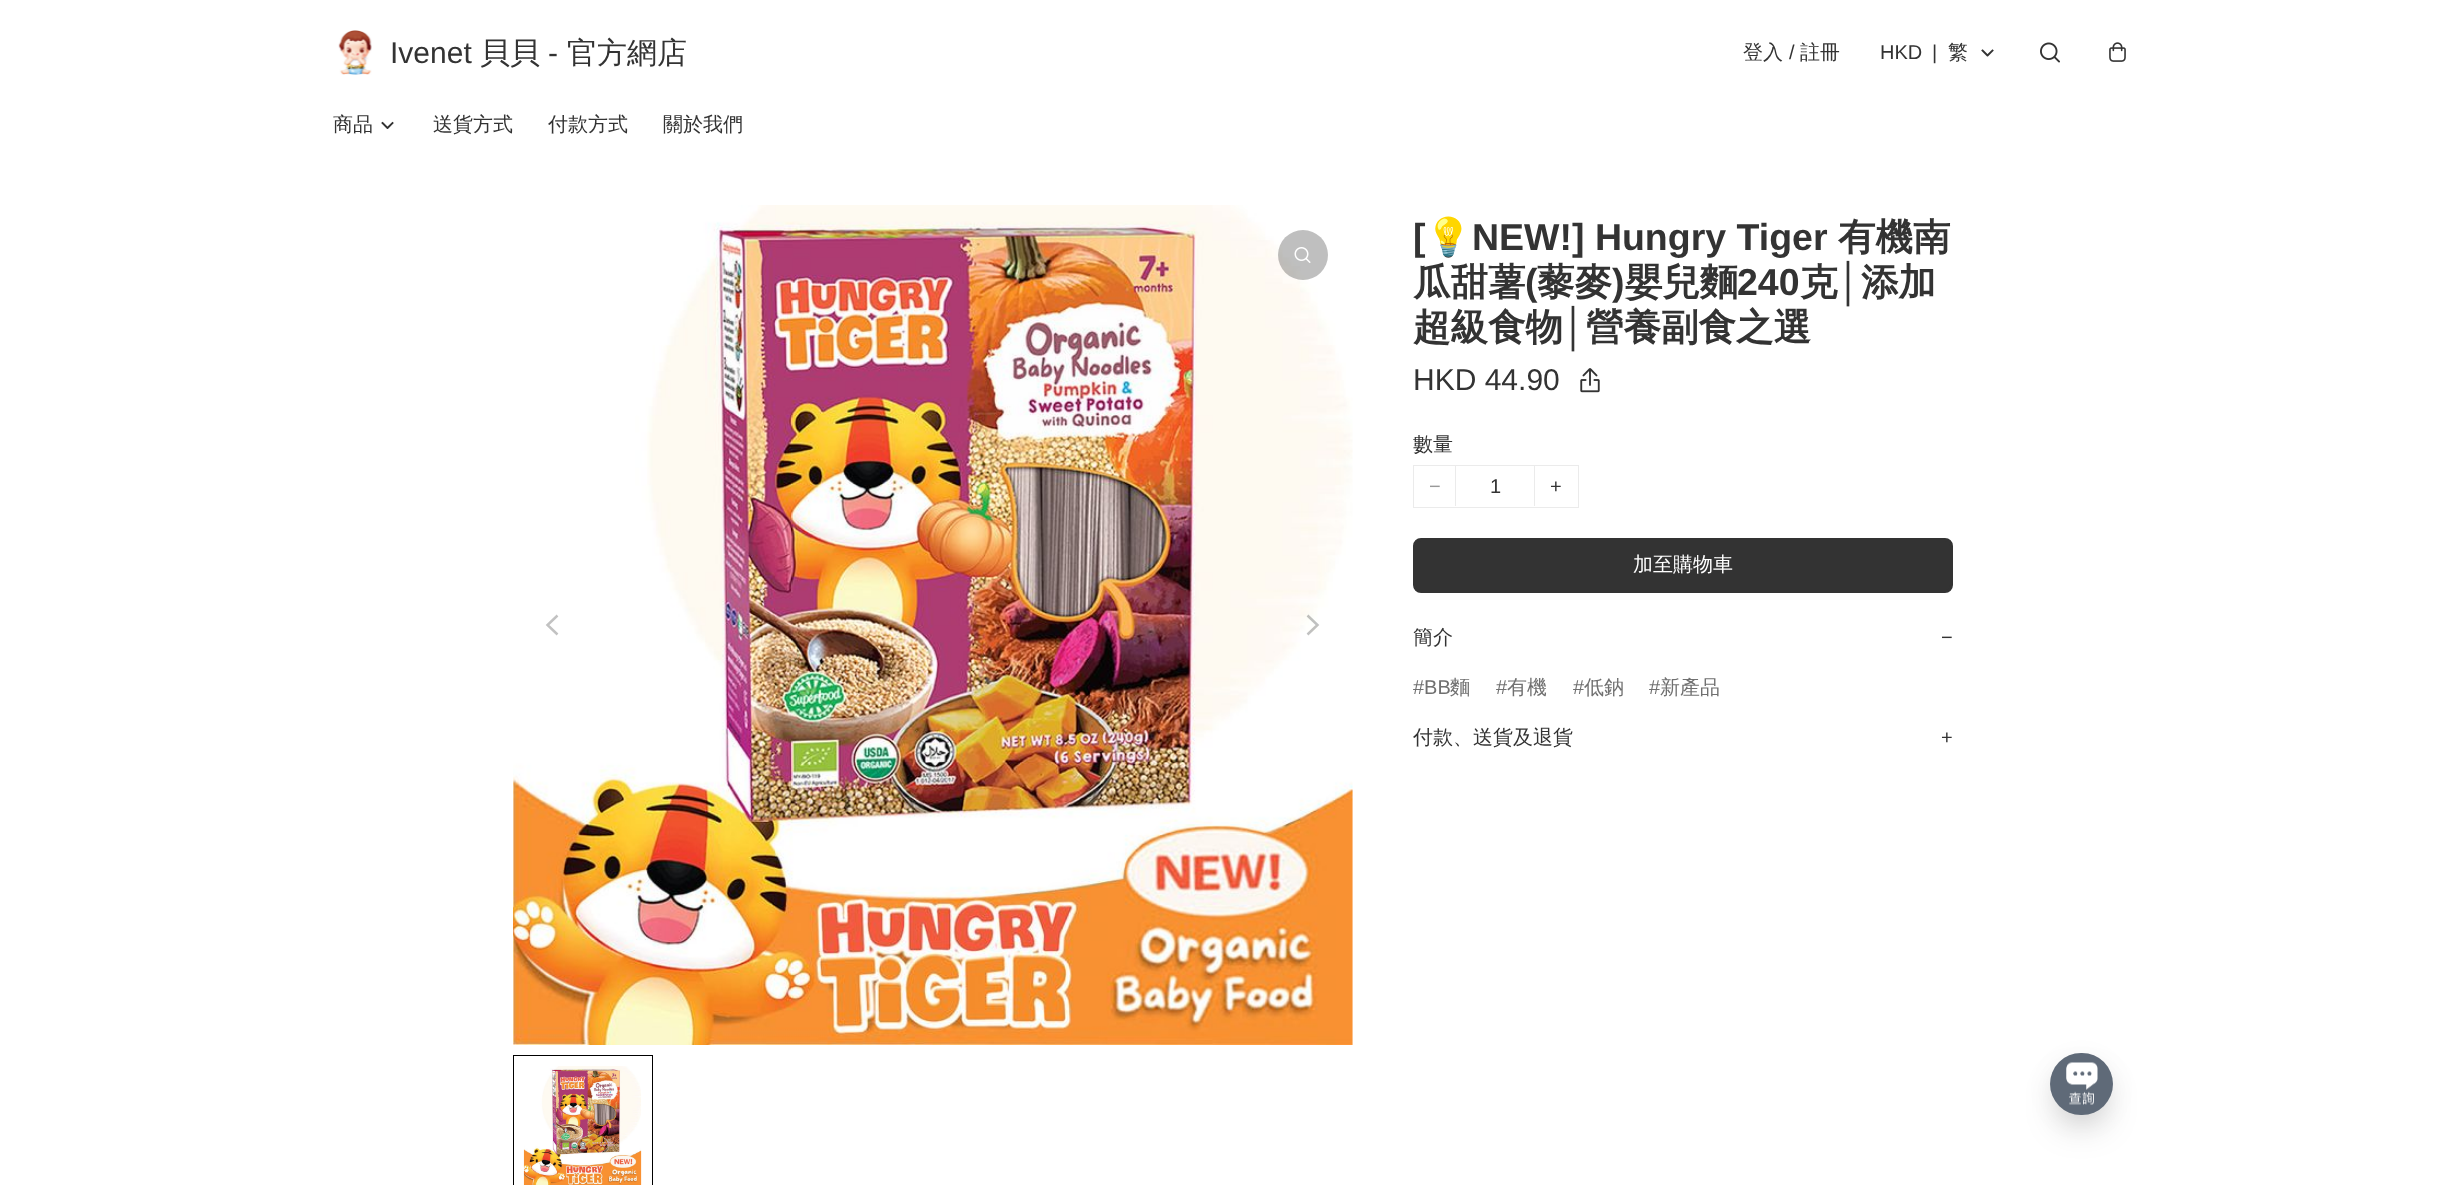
<!DOCTYPE html>
<meta charset="utf-8">
<style>body { margin: 0 } canvas { display: block }</style>
<canvas id="canvas" width="2464" height="1185"></canvas>
<img id="img1" src="img_01.png" hidden>
<img id="img2" src="img_02.png" hidden>
<img id="img3" src="img_03.png" hidden>
<img id="img4" src="img_04.png" hidden>
<img id="img5" src="img_05.png" hidden>
<img id="img6" src="img_06.png" hidden>
<img id="img7" src="img_07.png" hidden>
<img id="img8" src="img_08.png" hidden>
<script>
window.onload = function () {
	const canvas = document.getElementById("canvas");
	const ctx = canvas.getContext("2d");
	ctx.miterLimit = 4;
	ctx.fontKerning = "normal";
	function txt(s, x, y) {
		ctx.fillText(s, x, y);
	}
	function fill(x, y, w, h) {
		ctx.fillRect(x, y, w, h);
	}
	function round(x, y, w, h, r) {
		ctx.beginPath();
		ctx.roundRect(x, y, w, h, r);
		ctx.fill();
	}
	function img(id, x, y, w, h) {
		ctx.drawImage(document.getElementById(id), x, y, w, h);
	}

	ctx.fillStyle = "#FFFFFF";
	fill(0, 0, 2464, 1185);
	img("img1", 338, 30, 34, 45);
	ctx.beginPath();
	ctx.moveTo(1982.5, 50.5);
	ctx.lineTo(1987.5, 55.5);
	ctx.lineTo(1992.5, 50.5);
	ctx.strokeStyle = "#333333";
	ctx.lineWidth = 1.9;
	ctx.lineCap = "square";
	ctx.lineJoin = "round";
	ctx.stroke();
	img("img2", 2040, 42, 20, 21);
	img("img3", 2109, 42, 17, 20);
	ctx.beginPath();
	ctx.moveTo(382.5, 123);
	ctx.lineTo(387.5, 128);
	ctx.lineTo(392.5, 123);
	ctx.stroke();
	img("img4", 513, 205, 840, 840);
	ctx.fillStyle = "rgba(0, 0, 0, 0.25)";
	ctx.beginPath();
	ctx.arc(1303, 255, 25, 0, Math.PI * 2);
	ctx.fill();
	img("img5", 1294, 247, 17, 16);
	ctx.beginPath();
	ctx.moveTo(557.5, 615.5);
	ctx.lineTo(547.5, 625);
	ctx.lineTo(557.5, 634.5);
	ctx.strokeStyle = "#C2C2C2";
	ctx.lineWidth = 2.5;
	ctx.lineCap = "butt";
	ctx.lineJoin = "miter";
	ctx.stroke();
	ctx.beginPath();
	ctx.moveTo(1307.5, 615.5);
	ctx.lineTo(1317.5, 625);
	ctx.lineTo(1307.5, 634.5);
	ctx.strokeStyle = "rgba(51, 51, 51, 0.3)";
	ctx.stroke();
	ctx.strokeStyle = "#000000";
	ctx.lineWidth = 1;
	ctx.strokeRect(513.5, 1055.5, 139, 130);
	img("img6", 523, 1066, 119, 119);
	img("img7", 1580, 368, 20, 25);
	ctx.strokeStyle = "#EBEBEB";
	ctx.strokeRect(1413.5, 465.5, 165, 42);
	ctx.fillStyle = "#EBEBEB";
	fill(1534, 466, 1, 40);
	fill(1455, 466, 1, 40);
	ctx.fillStyle = "#333333";
	ctx.beginPath();
	ctx.roundRect(1414.5, 539.5, 537, 52, 6.5);
	ctx.fill();
	ctx.strokeStyle = "#333333";
	ctx.lineWidth = 3;
	ctx.stroke();
	ctx.fillStyle = "rgba(0, 0, 0, 0.3)";
	ctx.filter = "blur(19px)";
	ctx.beginPath();
	ctx.roundRect(2063, 1084, 37, 37, 18.5);
	ctx.fill();
	ctx.filter = "none";
	ctx.fillStyle = "rgba(0, 0, 0, 0.05)";
	ctx.filter = "blur(12.5px)";
	ctx.beginPath();
	ctx.roundRect(2050, 1059, 63, 62, 31);
	ctx.fill();
	ctx.filter = "none";
	ctx.fillStyle = "#5F6A78";
	round(2050, 1053, 63, 62, 31);
	img("img8", 2066, 1062, 32, 43);
	ctx.font = "30px Liberation Sans";
	ctx.fillStyle = "#333333";
	txt("Ivenet", 390, 63);
	ctx.font = "500 30px WenQuanYi Zen Hei";
	txt("貝貝", 480, 63);
	ctx.font = "30px Liberation Sans";
	txt("-", 548, 63);
	ctx.font = "500 30px WenQuanYi Zen Hei";
	txt("官方網店", 567, 63);
	ctx.font = "500 20px WenQuanYi Zen Hei";
	txt("登入", 1743, 59);
	ctx.font = "20px Liberation Sans";
	txt("/", 1789, 59);
	ctx.font = "500 20px WenQuanYi Zen Hei";
	txt("註冊", 1800, 59);
	ctx.font = "20px Liberation Sans";
	txt("HKD", 1880, 59);
	txt("|", 1932, 59);
	ctx.font = "500 20px WenQuanYi Zen Hei";
	txt("繁", 1948, 59);
	txt("商品", 333, 131);
	txt("送貨方式", 433, 131);
	txt("付款方式", 548, 131);
	txt("關於我們", 663, 131);
	ctx.font = "bold 37.5px Liberation Sans";
	txt("[", 1413, 250);
	ctx.font = "bold 37.5px Noto Color Emoji";
	txt("💡", 1425, 250);
	ctx.font = "bold 37.5px Liberation Sans";
	txt("NEW!] Hungry Tiger", 1472, 250);
	ctx.font = "bold 37.5px WenQuanYi Zen Hei";
	txt("有機南", 1838, 250);
	txt("瓜甜薯", 1413, 295);
	ctx.font = "bold 37.5px Liberation Sans";
	txt("(", 1525, 295);
	ctx.font = "bold 37.5px WenQuanYi Zen Hei";
	txt("藜麥", 1537, 295);
	ctx.font = "bold 37.5px Liberation Sans";
	txt(")", 1612, 295);
	ctx.font = "bold 37.5px WenQuanYi Zen Hei";
	txt("嬰兒麵", 1625, 295);
	ctx.font = "bold 37.5px Liberation Sans";
	txt("240", 1737, 295);
	ctx.font = "bold 37.5px WenQuanYi Zen Hei";
	txt("克", 1800, 295);
	ctx.font = "bold 37.5px Liberation Sans";
	txt("│", 1838, 295);
	ctx.font = "bold 37.5px WenQuanYi Zen Hei";
	txt("添加", 1861, 295);
	txt("超級食物", 1413, 340);
	ctx.font = "bold 37.5px Liberation Sans";
	txt("│", 1563, 340);
	ctx.font = "bold 37.5px WenQuanYi Zen Hei";
	txt("營養副食之選", 1586, 340);
	ctx.font = "30px Liberation Sans";
	txt("HKD 44.90", 1413, 390);
	ctx.font = "500 20px WenQuanYi Zen Hei";
	txt("數量", 1413, 451);
	ctx.font = "20px Liberation Sans";
	ctx.fillStyle = "#999999";
	txt("−", 1429, 493);
	ctx.fillStyle = "#333333";
	txt("1", 1490, 493);
	txt("+", 1550, 493);
	ctx.font = "500 20px WenQuanYi Zen Hei";
	ctx.fillStyle = "#FFFFFF";
	txt("加至購物車", 1633, 571);
	ctx.fillStyle = "#333333";
	txt("簡介", 1413, 644);
	ctx.font = "20px Liberation Sans";
	txt("−", 1941, 644);
	ctx.fillStyle = "#707070";
	txt("#BB", 1413, 694);
	ctx.font = "500 20px WenQuanYi Zen Hei";
	txt("麵", 1450, 694);
	ctx.font = "20px Liberation Sans";
	txt("#", 1496, 694);
	ctx.font = "500 20px WenQuanYi Zen Hei";
	txt("有機", 1507, 694);
	ctx.font = "20px Liberation Sans";
	txt("#", 1573, 694);
	ctx.font = "500 20px WenQuanYi Zen Hei";
	txt("低鈉", 1584, 694);
	ctx.font = "20px Liberation Sans";
	txt("#", 1649, 694);
	ctx.font = "500 20px WenQuanYi Zen Hei";
	txt("新產品", 1660, 694);
	ctx.fillStyle = "#333333";
	txt("付款、送貨及退貨", 1413, 744);
	ctx.font = "20px Liberation Sans";
	txt("+", 1941, 744);
};
</script>
